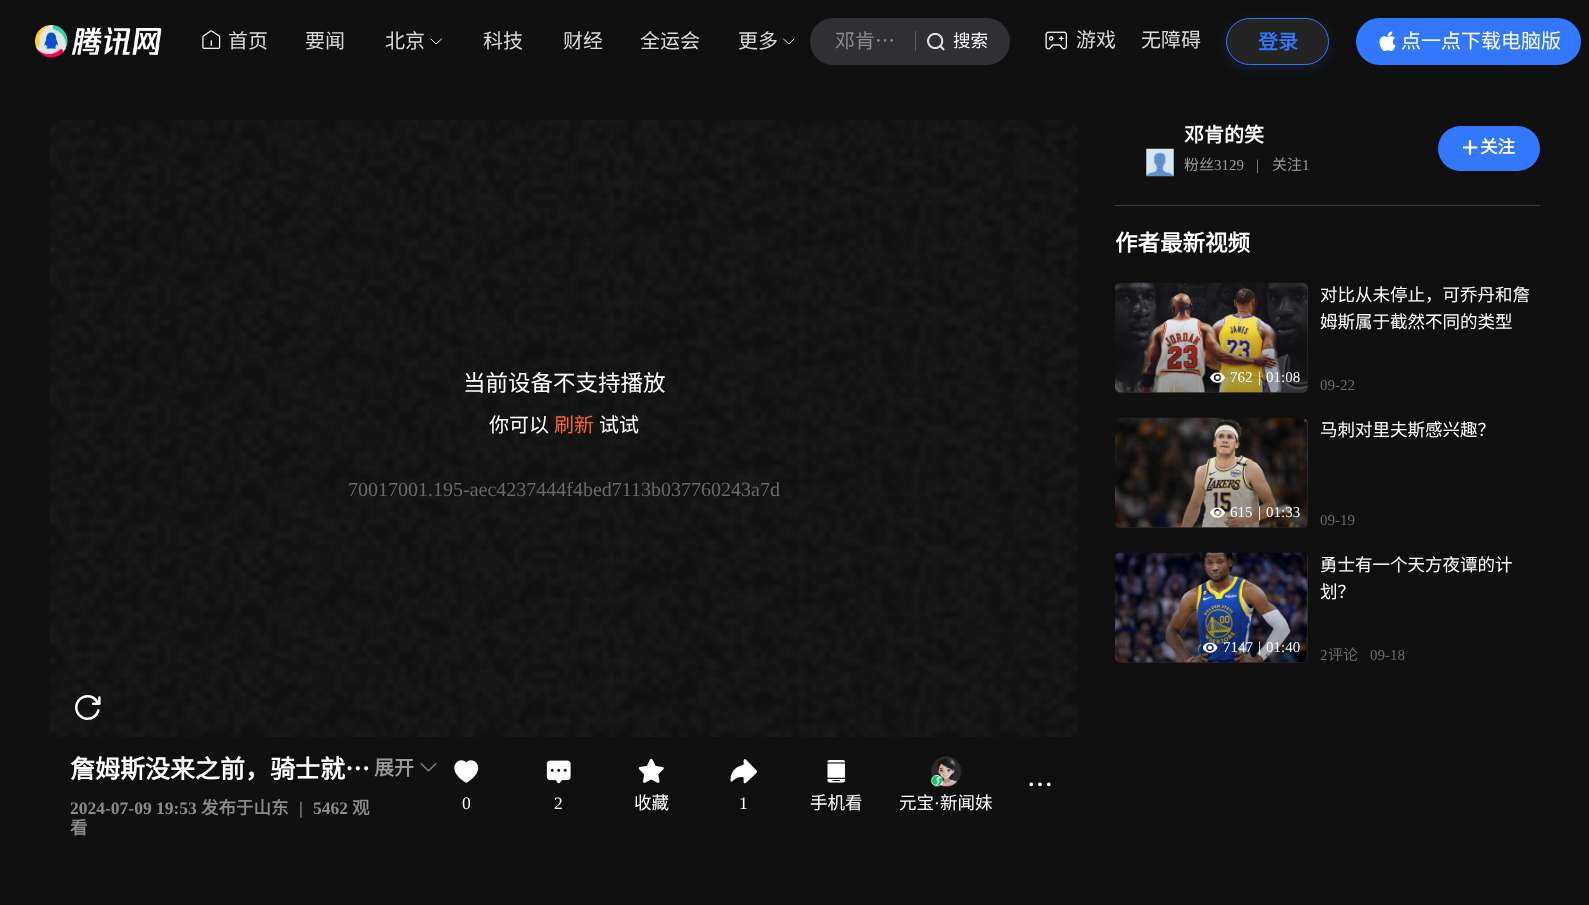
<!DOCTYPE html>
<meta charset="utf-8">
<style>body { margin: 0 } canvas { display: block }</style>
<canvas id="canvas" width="1589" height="905"></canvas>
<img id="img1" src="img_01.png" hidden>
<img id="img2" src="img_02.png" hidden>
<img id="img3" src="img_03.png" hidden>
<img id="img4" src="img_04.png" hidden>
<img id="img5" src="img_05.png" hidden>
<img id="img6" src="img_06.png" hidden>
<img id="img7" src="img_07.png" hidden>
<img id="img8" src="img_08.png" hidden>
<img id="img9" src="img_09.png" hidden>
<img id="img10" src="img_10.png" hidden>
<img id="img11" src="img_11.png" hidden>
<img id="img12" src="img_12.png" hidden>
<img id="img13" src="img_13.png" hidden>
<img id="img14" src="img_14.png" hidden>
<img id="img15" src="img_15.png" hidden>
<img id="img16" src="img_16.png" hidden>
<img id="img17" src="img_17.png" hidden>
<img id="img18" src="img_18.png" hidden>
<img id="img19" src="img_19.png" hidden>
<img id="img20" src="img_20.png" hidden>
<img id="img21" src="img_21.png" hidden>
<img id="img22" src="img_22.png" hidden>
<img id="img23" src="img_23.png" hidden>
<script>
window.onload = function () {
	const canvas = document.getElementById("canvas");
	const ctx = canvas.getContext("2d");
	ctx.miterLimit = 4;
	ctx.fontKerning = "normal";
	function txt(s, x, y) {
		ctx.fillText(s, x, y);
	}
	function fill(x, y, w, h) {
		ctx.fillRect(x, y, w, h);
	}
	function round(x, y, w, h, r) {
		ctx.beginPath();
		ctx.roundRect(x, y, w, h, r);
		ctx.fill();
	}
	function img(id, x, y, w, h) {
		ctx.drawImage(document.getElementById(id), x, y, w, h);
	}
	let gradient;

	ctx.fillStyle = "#0F0F0F";
	fill(0, 0, 1589, 905);
	img("img1", 35, 25, 127, 33);
	img("img2", 202, 30, 19, 19);
	ctx.beginPath();
	ctx.moveTo(441.5, 39);
	ctx.lineTo(436, 44);
	ctx.lineTo(431, 39);
	ctx.strokeStyle = "#FFFFFF";
	ctx.lineWidth = 0.9;
	ctx.lineCap = "round";
	ctx.lineJoin = "round";
	ctx.stroke();
	ctx.beginPath();
	ctx.moveTo(794, 39);
	ctx.lineTo(789, 44);
	ctx.lineTo(783.5, 39);
	ctx.stroke();
	ctx.fillStyle = "#2F2F34";
	round(810, 18, 200, 47, 23);
	ctx.fillStyle = "#59595D";
	fill(915, 31, 1, 20);
	img("img3", 927, 32, 18, 19);
	img("img4", 1045, 31, 23, 19);
	ctx.save();
	ctx.beginPath();
	ctx.moveTo(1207, 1);
	ctx.lineTo(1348, 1);
	ctx.lineTo(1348, 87);
	ctx.lineTo(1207, 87);
	ctx.closePath();
	ctx.moveTo(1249.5, 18);
	ctx.lineTo(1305.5, 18);
	ctx.bezierCurveTo(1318.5, 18, 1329, 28.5, 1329, 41.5);
	ctx.bezierCurveTo(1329, 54.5, 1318.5, 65, 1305.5, 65);
	ctx.lineTo(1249.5, 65);
	ctx.bezierCurveTo(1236.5, 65, 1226, 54.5, 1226, 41.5);
	ctx.bezierCurveTo(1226, 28.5, 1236.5, 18, 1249.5, 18);
	ctx.closePath();
	ctx.clip("evenodd");
	ctx.fillStyle = "rgba(51, 119, 255, 0.16)";
	ctx.filter = "blur(6px)";
	ctx.beginPath();
	ctx.roundRect(1226, 20, 103, 48, 24);
	ctx.fill();
	ctx.filter = "none";
	ctx.restore();
	ctx.fillStyle = "rgba(217, 217, 217, 0.1)";
	ctx.beginPath();
	ctx.roundRect(1226.5, 18.5, 102, 46, 23);
	ctx.fill();
	ctx.strokeStyle = "#3377FF";
	ctx.lineWidth = 1;
	ctx.lineJoin = "miter";
	ctx.stroke();
	ctx.fillStyle = "#3377FF";
	round(1356, 18, 225, 47, 23.5);
	img("img5", 1379, 31, 17, 20);
	img("img6", 50, 120, 1028, 617);
	img("img7", 420, 762, 17, 10);
	img("img8", 1029, 782, 22, 5);
	img("img9", 454, 760, 25, 23);
	img("img10", 546, 760, 25, 24);
	img("img11", 638, 758, 26, 25);
	img("img12", 730, 759, 27, 25);
	img("img13", 827, 760, 18, 23);
	img("img14", 931, 756, 31, 31);
	img("img15", 931, 775, 12, 12);
	img("img16", 1146, 148, 28, 29);
	round(1438, 126, 102, 45, 22.5);
	img("img17", 1463, 140, 15, 15);
	ctx.fillStyle = "#383838";
	fill(1115, 205, 425, 1);
	ctx.fillStyle = "#333333";
	round(1115, 283, 193, 110, 5);
	img("img18", 1115, 282, 193, 111);
	gradient = ctx.createLinearGradient(1211, 393, 1211, 283);
	gradient.addColorStop(0.3, "rgba(0, 0, 0, 0.3)");
	gradient.addColorStop(0.6, "rgba(0, 0, 0, 0)");
	ctx.fillStyle = gradient;
	round(1115, 283, 193, 110, 5);
	img("img19", 1210, 372, 15, 11);
	ctx.fillStyle = "#333333";
	round(1115, 418, 193, 110, 5);
	img("img20", 1115, 417, 193, 111);
	gradient = ctx.createLinearGradient(1211, 528, 1211, 418);
	gradient.addColorStop(0.3, "rgba(0, 0, 0, 0.3)");
	gradient.addColorStop(0.6, "rgba(0, 0, 0, 0)");
	ctx.fillStyle = gradient;
	round(1115, 418, 193, 110, 5);
	img("img21", 1210, 507, 15, 11);
	ctx.fillStyle = "#333333";
	round(1115, 553, 193, 110, 5);
	img("img22", 1115, 552, 193, 111);
	gradient = ctx.createLinearGradient(1211, 663, 1211, 553);
	gradient.addColorStop(0.3, "rgba(0, 0, 0, 0.3)");
	gradient.addColorStop(0.6, "rgba(0, 0, 0, 0)");
	ctx.fillStyle = gradient;
	round(1115, 553, 193, 110, 5);
	img("img23", 1203, 642, 15, 11);
	ctx.font = "20px Noto Sans CJK SC";
	ctx.fillStyle = "#D9D9D9";
	txt("首页", 228, 48);
	txt("要闻", 305, 48);
	txt("北京", 385, 48);
	txt("科技", 483, 48);
	txt("财经", 563, 48);
	txt("全运会", 640, 48);
	txt("更多", 738, 48);
	ctx.fillStyle = "#8B8B8B";
	txt("邓肯…", 835, 48);
	ctx.font = "17.5px Noto Sans CJK SC";
	ctx.fillStyle = "#FFFFFF";
	txt("搜索", 953, 47);
	ctx.font = "20px Noto Sans CJK SC";
	ctx.fillStyle = "#D9D9D9";
	txt("游戏", 1076, 47);
	txt("无障碍", 1141, 47);
	ctx.font = "bold 20px Noto Sans CJK SC";
	ctx.fillStyle = "#3377FF";
	txt("登录", 1258, 49);
	ctx.font = "20px Noto Sans CJK SC";
	ctx.fillStyle = "#FFFFFF";
	txt("点一点下载电脑版", 1401, 48);
	ctx.font = "22.5px Noto Sans CJK SC";
	txt("当前设备不支持播放", 463, 391);
	ctx.font = "20px Noto Sans CJK SC";
	txt("你可以", 489, 432);
	ctx.fillStyle = "#FC6526";
	txt("刷新", 554, 432);
	ctx.fillStyle = "#FFFFFF";
	txt("试试", 599, 432);
	ctx.font = "20px Liberation Serif";
	ctx.fillStyle = "#696969";
	txt("70017001.195-aec4237444f4bed7113b037760243a7d", 348, 496);
	ctx.font = "bold 25px Noto Sans CJK SC";
	ctx.fillStyle = "#FFFFFF";
	txt("詹姆斯没来之前，骑士就…", 70, 778);
	ctx.font = "bold 20px Noto Sans CJK SC";
	ctx.fillStyle = "#999999";
	txt("展开", 374, 775);
	ctx.font = "bold 17.5px Liberation Serif";
	ctx.fillStyle = "#8B8B8B";
	txt("2024-07-09 19:53", 70, 814);
	ctx.font = "bold 17.5px Noto Sans CJK SC";
	txt("发布于山东", 201, 814);
	ctx.font = "bold 17.5px Liberation Serif";
	txt("|", 299, 814);
	txt("5462", 313, 814);
	ctx.font = "bold 17.5px Noto Sans CJK SC";
	txt("观", 352, 814);
	txt("看", 70, 834);
	ctx.font = "17.5px Liberation Serif";
	ctx.fillStyle = "#FFFFFF";
	txt("0", 462, 809);
	txt("2", 554, 809);
	ctx.font = "17.5px Noto Sans CJK SC";
	txt("收藏", 634, 809);
	ctx.font = "17.5px Liberation Serif";
	txt("1", 739, 809);
	ctx.font = "17.5px Noto Sans CJK SC";
	txt("手机看", 810, 809);
	txt("元宝", 899, 809);
	ctx.font = "17.5px Liberation Serif";
	txt("·", 934, 809);
	ctx.font = "17.5px Noto Sans CJK SC";
	txt("新闻妹", 940, 809);
	ctx.font = "bold 20px Noto Sans CJK SC";
	txt("邓肯的笑", 1184, 142);
	ctx.font = "15px Noto Sans CJK SC";
	ctx.fillStyle = "#999999";
	txt("粉丝", 1184, 170);
	ctx.font = "15px Liberation Serif";
	txt("3129", 1214, 170);
	txt("|", 1256, 170);
	ctx.font = "15px Noto Sans CJK SC";
	txt("关注", 1272, 170);
	ctx.font = "15px Liberation Serif";
	txt("1", 1302, 170);
	ctx.font = "bold 17.5px Noto Sans CJK SC";
	ctx.fillStyle = "#FFFFFF";
	txt("关注", 1480, 153);
	ctx.font = "bold 22.5px Noto Sans CJK SC";
	txt("作者最新视频", 1115, 251);
	ctx.font = "15px Liberation Serif";
	txt("762", 1230, 382);
	txt("|", 1258, 382);
	txt("01:08", 1266, 382);
	ctx.font = "17.5px Noto Sans CJK SC";
	txt("对比从未停止，可乔丹和詹", 1320, 301);
	txt("姆斯属于截然不同的类型", 1320, 328);
	ctx.font = "15px Liberation Serif";
	ctx.fillStyle = "#696969";
	txt("09-22", 1320, 390);
	ctx.fillStyle = "#FFFFFF";
	txt("615", 1230, 517);
	txt("|", 1258, 517);
	txt("01:33", 1266, 517);
	ctx.font = "17.5px Noto Sans CJK SC";
	txt("马刺对里夫斯感兴趣？", 1320, 436);
	ctx.font = "15px Liberation Serif";
	ctx.fillStyle = "#696969";
	txt("09-19", 1320, 525);
	ctx.fillStyle = "#FFFFFF";
	txt("7147", 1223, 652);
	txt("|", 1258, 652);
	txt("01:40", 1266, 652);
	ctx.font = "17.5px Noto Sans CJK SC";
	txt("勇士有一个天方夜谭的计", 1320, 571);
	txt("划？", 1320, 598);
	ctx.font = "15px Liberation Serif";
	ctx.fillStyle = "#696969";
	txt("2", 1320, 660);
	ctx.font = "15px Noto Sans CJK SC";
	txt("评论", 1328, 660);
	ctx.font = "15px Liberation Serif";
	txt("09-18", 1370, 660);
};
</script>
